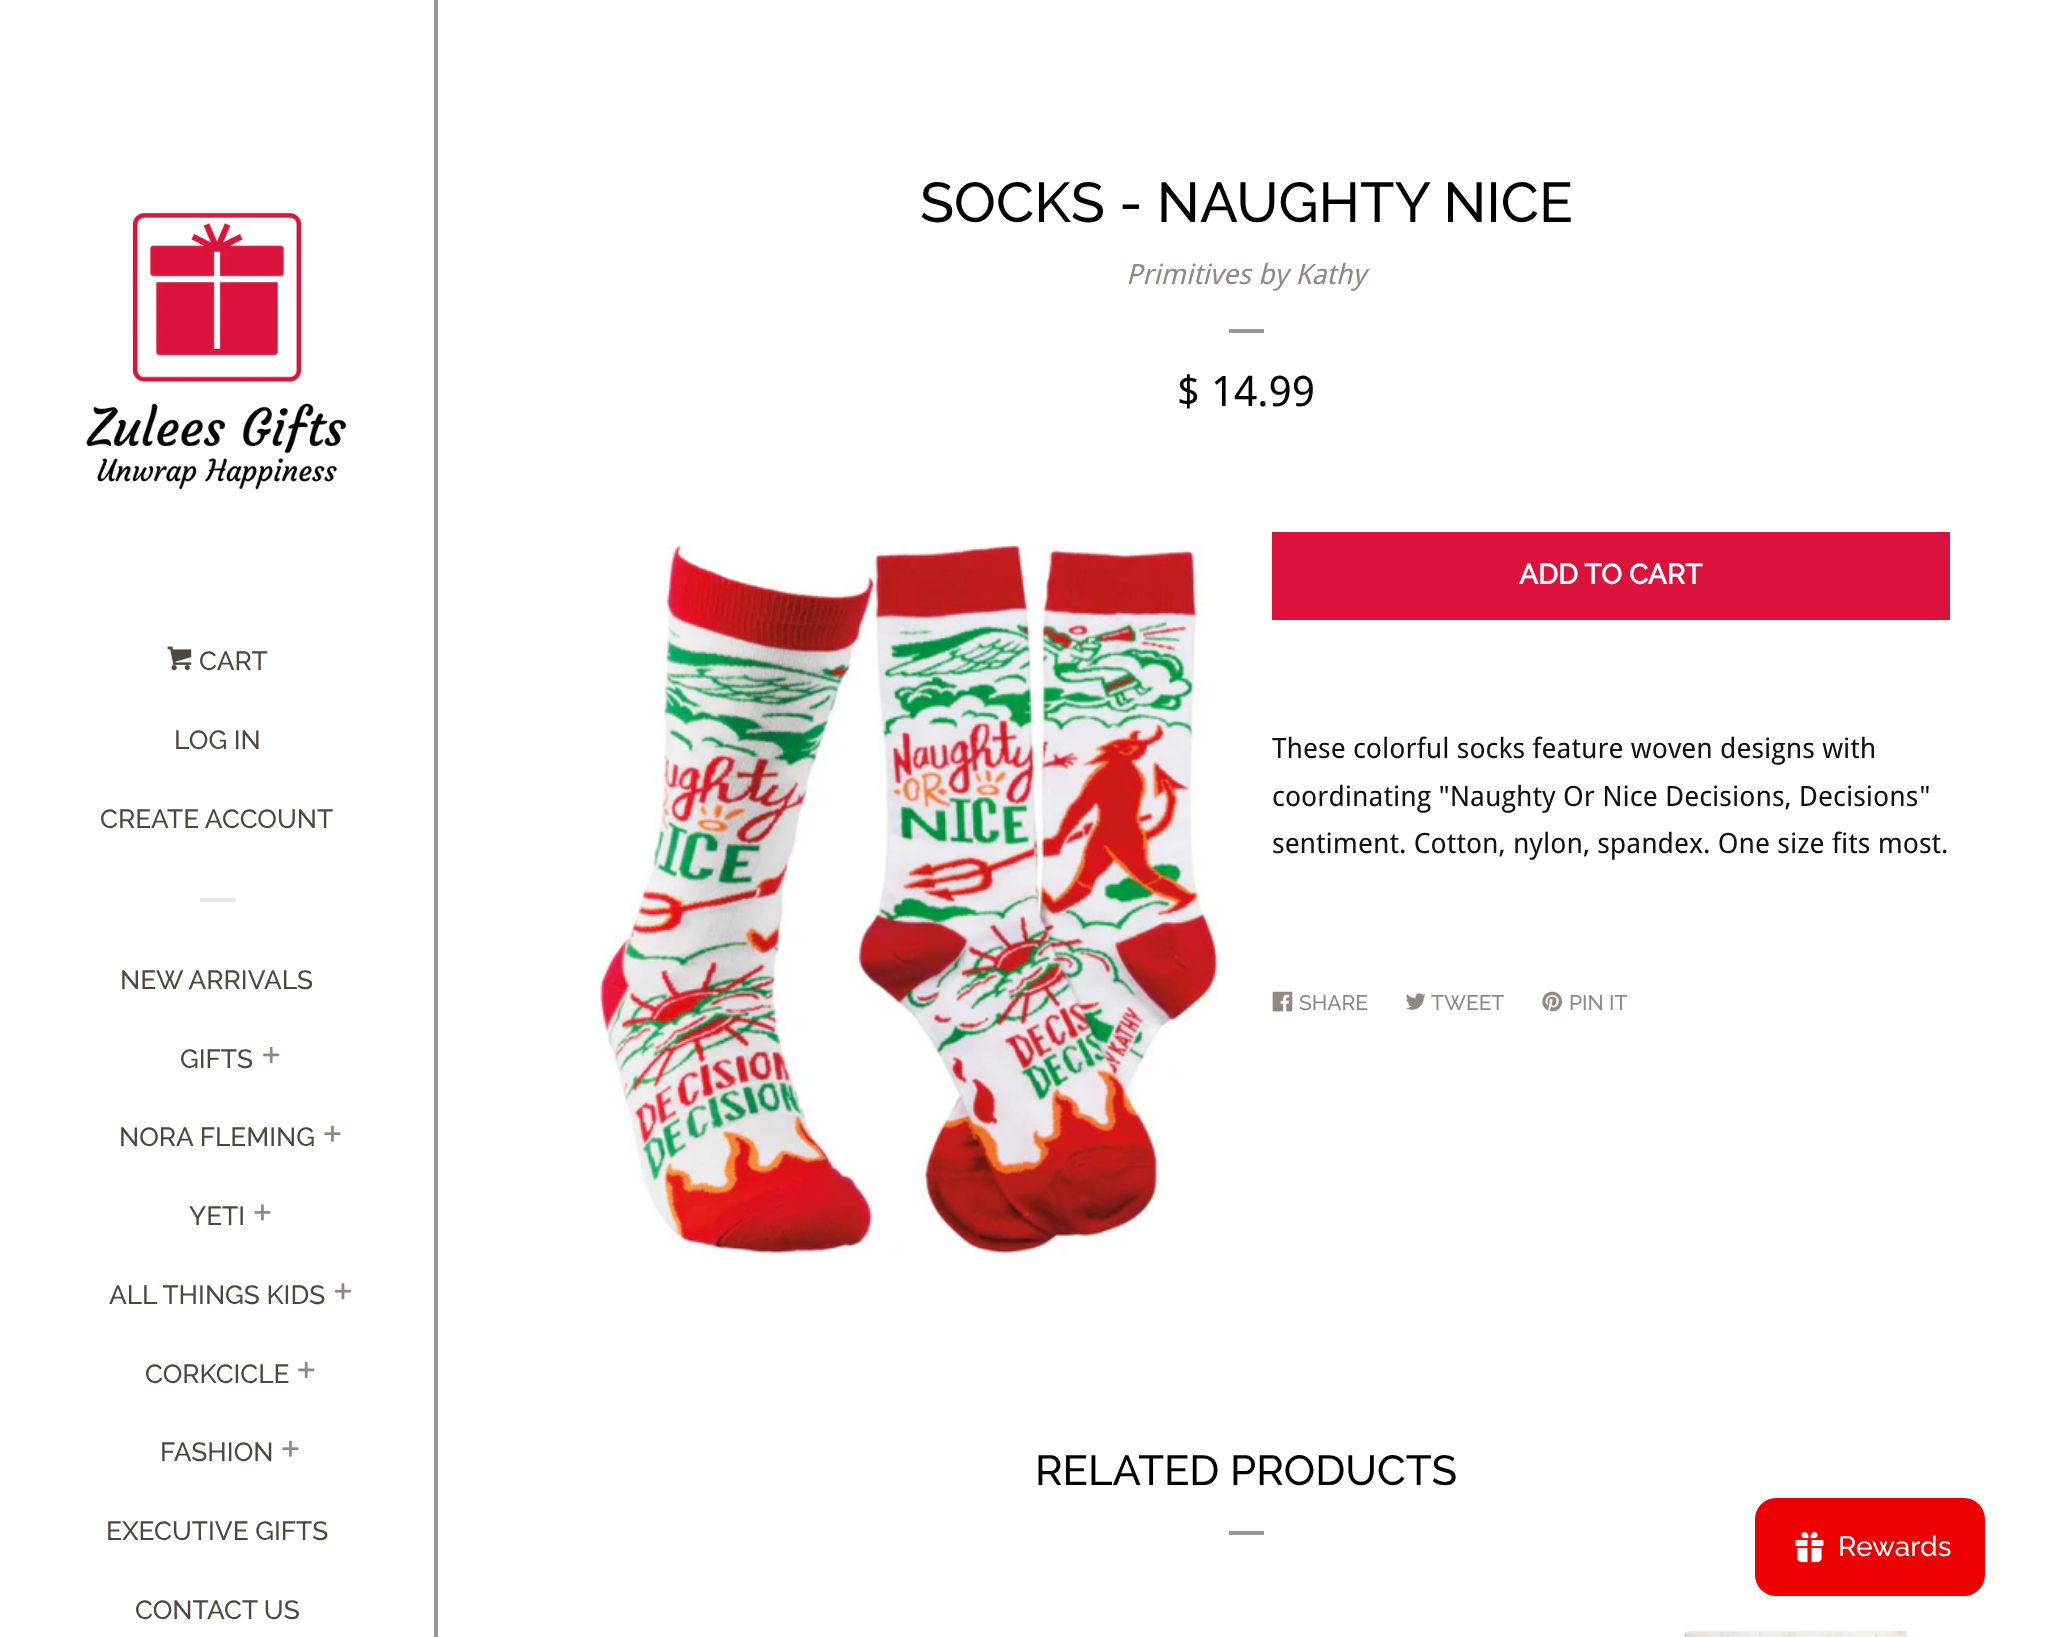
<!DOCTYPE html>
<meta charset="utf-8">
<style>body { margin: 0 } canvas { display: block }</style>
<canvas id="canvas" width="2054" height="1637"></canvas>
<img id="img1" src="img_01.png" hidden>
<img id="img2" src="img_02.png" hidden>
<img id="img3" src="img_03.png" hidden>
<img id="img4" src="img_04.png" hidden>
<img id="img5" src="img_05.png" hidden>
<img id="img6" src="img_06.png" hidden>
<img id="img7" src="img_07.png" hidden>
<img id="img8" src="img_08.png" hidden>
<img id="img9" src="img_09.png" hidden>
<img id="img10" src="img_10.png" hidden>
<img id="img11" src="img_11.png" hidden>
<img id="img12" src="img_12.png" hidden>
<script>
window.onload = function () {
	const canvas = document.getElementById("canvas");
	const ctx = canvas.getContext("2d");
	ctx.miterLimit = 4;
	ctx.fontKerning = "normal";
	function txt(s, x, y) {
		ctx.fillText(s, x, y);
	}
	function fill(x, y, w, h) {
		ctx.fillRect(x, y, w, h);
	}
	function round(x, y, w, h, r) {
		ctx.beginPath();
		ctx.roundRect(x, y, w, h, r);
		ctx.fill();
	}
	function img(id, x, y, w, h) {
		ctx.drawImage(document.getElementById(id), x, y, w, h);
	}

	ctx.fillStyle = "#FFFFFF";
	fill(0, 0, 2054, 1637);
	ctx.fillStyle = "#999695";
	fill(434, 0, 4, 1637);
	img("img1", 86, 212, 261, 278);
	img("img2", 167, 646, 25, 25);
	ctx.fillStyle = "#E6E6E6";
	fill(200, 898, 35, 4);
	img("img3", 263, 1046, 17, 17);
	img("img4", 324, 1125, 17, 17);
	img("img5", 254, 1204, 17, 17);
	img("img6", 334, 1283, 17, 17);
	img("img3", 298, 1361, 17, 17);
	img("img4", 282, 1440, 17, 17);
	ctx.fillStyle = "#999695";
	fill(1229, 329, 35, 4);
	img("img7", 596, 543, 623, 714);
	ctx.fillStyle = "#DB133C";
	fill(1272, 532, 678, 88);
	img("img8", 1272, 991, 21, 21);
	img("img9", 1405, 993, 21, 17);
	img("img10", 1542, 991, 20, 21);
	ctx.fillStyle = "#999695";
	fill(1229, 1531, 35, 4);
	img("img11", 1684, 1630, 225, 7);
	ctx.fillStyle = "#ED0000";
	round(1755, 1498, 230, 98, 21);
	img("img12", 1795, 1531, 29, 32);
	ctx.font = "100 26.25px Raleway";
	ctx.fillStyle = "#4D483E";
	txt("CART", 199, 670);
	txt("LOG IN", 174, 749);
	txt("CREATE ACCOUNT", 100, 828);
	txt("NEW ARRIVALS", 120, 989);
	txt("GIFTS", 180, 1068);
	txt("NORA FLEMING", 119, 1146);
	txt("YETI", 189, 1225);
	txt("ALL THINGS KIDS", 109, 1304);
	txt("CORKCICLE", 145, 1383);
	txt("FASHION", 160, 1461);
	txt("EXECUTIVE GIFTS", 106, 1540);
	txt("CONTACT US", 135, 1619);
	ctx.font = "100 56px Raleway";
	ctx.fillStyle = "#000000";
	txt("SOCKS - NAUGHTY NICE", 920, 222);
	ctx.font = "italic 28px Droid Sans";
	ctx.fillStyle = "#918783";
	txt("Primitives by Kathy", 1126, 284);
	ctx.font = "42px Droid Sans";
	ctx.fillStyle = "#000000";
	txt("$ 14.99", 1177, 406);
	ctx.font = "bold 28px Raleway";
	ctx.fillStyle = "#FFFFFF";
	txt("ADD TO CART", 1519, 584);
	ctx.font = "28px Droid Sans";
	ctx.fillStyle = "#111111";
	txt("These colorful socks feature woven designs with", 1272, 758);
	txt("coordinating \"Naughty Or Nice Decisions, Decisions\"", 1272, 806);
	txt("sentiment. Cotton, nylon, spandex. One size fits most.", 1272, 853);
	ctx.font = "100 21px Raleway";
	ctx.fillStyle = "#918783";
	txt("SHARE", 1299, 1010);
	txt("TWEET", 1431, 1010);
	txt("PIN IT", 1569, 1010);
	ctx.font = "100 42px Raleway";
	ctx.fillStyle = "#000000";
	txt("RELATED PRODUCTS", 1035, 1485);
	ctx.font = "100 28px Raleway";
	ctx.fillStyle = "#FFFFFF";
	txt("Rewards", 1838, 1556);
};
</script>
